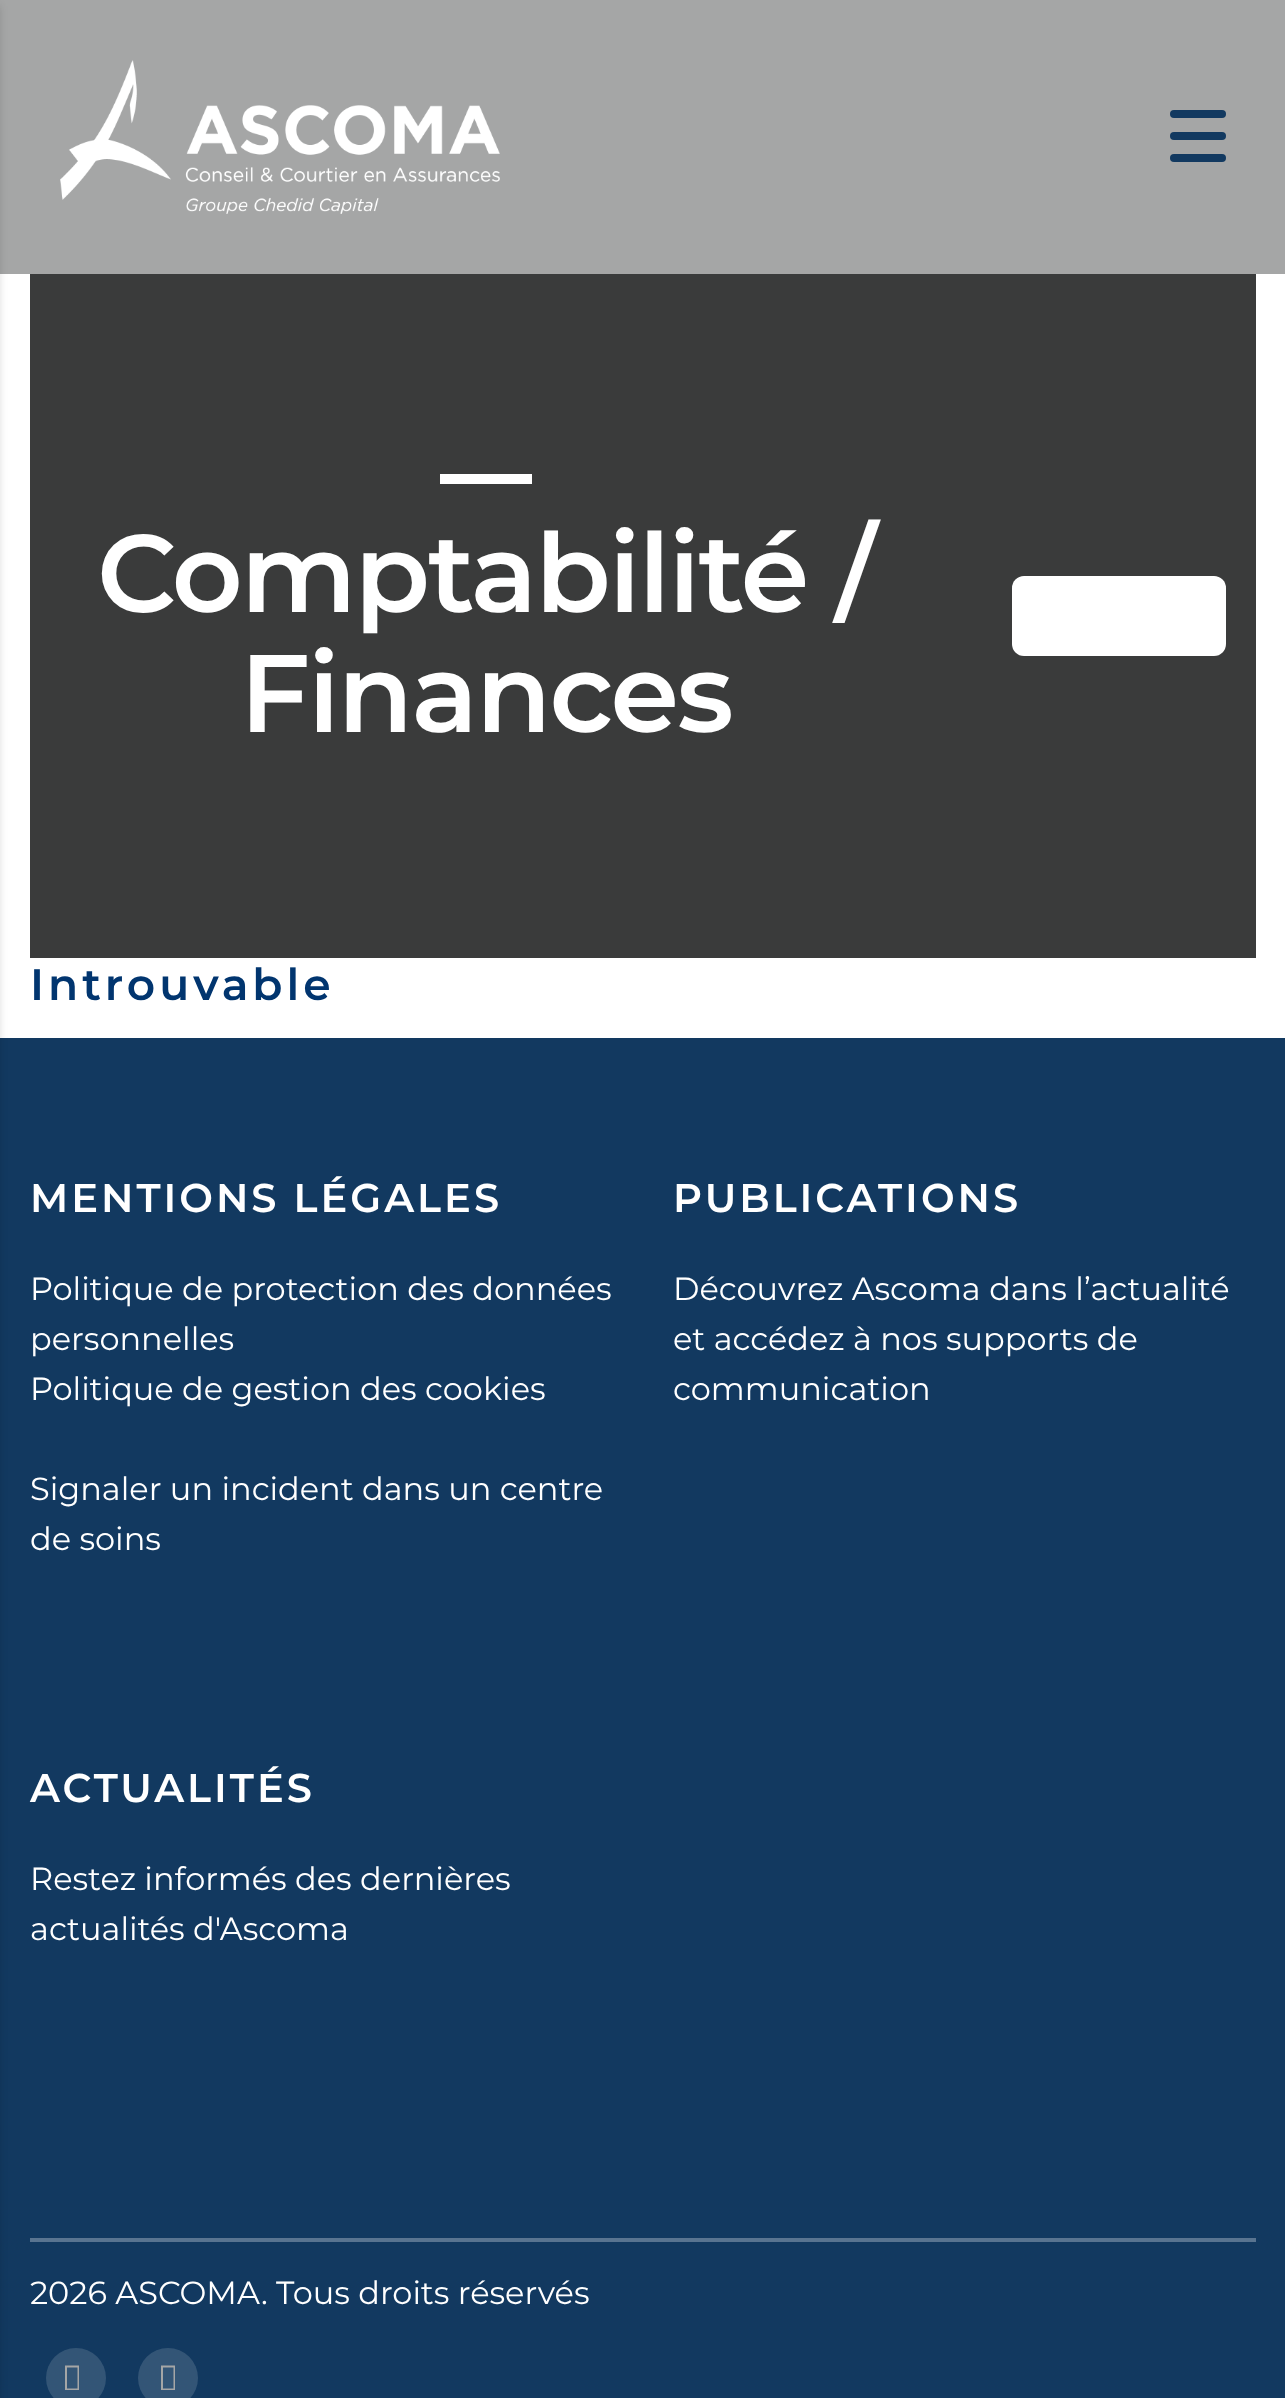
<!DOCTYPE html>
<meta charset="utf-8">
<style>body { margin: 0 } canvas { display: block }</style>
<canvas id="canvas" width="1285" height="2398"></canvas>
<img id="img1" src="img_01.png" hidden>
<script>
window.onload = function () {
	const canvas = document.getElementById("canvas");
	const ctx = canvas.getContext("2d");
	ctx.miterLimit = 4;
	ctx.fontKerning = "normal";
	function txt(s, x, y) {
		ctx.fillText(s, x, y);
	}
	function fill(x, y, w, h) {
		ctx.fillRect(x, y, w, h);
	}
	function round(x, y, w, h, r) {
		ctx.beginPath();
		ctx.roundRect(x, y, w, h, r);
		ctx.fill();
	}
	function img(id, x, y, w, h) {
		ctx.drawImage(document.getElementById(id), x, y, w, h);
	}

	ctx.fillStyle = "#FFFFFF";
	fill(0, 0, 1285, 2398);
	ctx.fillStyle = "#A5A6A6";
	fill(0, 0, 1285, 274);
	img("img1", 60, 60, 440, 154);
	ctx.fillStyle = "#123960";
	round(1170, 110, 56, 8, 4);
	round(1170, 132, 56, 8, 4);
	round(1170, 154, 56, 8, 4);
	fill(0, 1038, 1285, 1360);
	ctx.fillStyle = "rgba(0, 0, 0, 0.2)";
	ctx.filter = "blur(5px)";
	ctx.beginPath();
	ctx.rect(-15, 6, 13, 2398);
	ctx.fill();
	ctx.filter = "none";
	ctx.fillStyle = "#3A3B3B";
	fill(30, 274, 1226, 684);
	ctx.fillStyle = "#FFFFFF";
	fill(440, 474, 92, 10);
	round(1012, 576, 214, 80, 12);
	ctx.fillStyle = "#597490";
	fill(30, 2238, 1226, 4);
	ctx.fillStyle = "#335576";
	ctx.beginPath();
	ctx.arc(76, 2378, 30, 0, Math.PI * 2);
	ctx.fill();
	ctx.fillStyle = "#A5A6A6";
	ctx.beginPath();
	ctx.moveTo(65, 2390);
	ctx.lineTo(65, 2365.5);
	ctx.lineTo(79, 2365.5);
	ctx.lineTo(79, 2390);
	ctx.closePath();
	ctx.moveTo(67, 2388.5);
	ctx.lineTo(77.5, 2388.5);
	ctx.lineTo(77.5, 2367.5);
	ctx.lineTo(67, 2367.5);
	ctx.closePath();
	ctx.fill();
	ctx.fillStyle = "#335576";
	ctx.beginPath();
	ctx.arc(168, 2378, 30, 0, Math.PI * 2);
	ctx.fill();
	ctx.fillStyle = "#A5A6A6";
	ctx.beginPath();
	ctx.moveTo(161, 2390);
	ctx.lineTo(161, 2365.5);
	ctx.lineTo(175, 2365.5);
	ctx.lineTo(175, 2390);
	ctx.closePath();
	ctx.moveTo(163, 2388.5);
	ctx.lineTo(173.5, 2388.5);
	ctx.lineTo(173.5, 2367.5);
	ctx.lineTo(163, 2367.5);
	ctx.closePath();
	ctx.fill();
	ctx.letterSpacing = "-2px";
	ctx.font = "600 110px Montserrat";
	ctx.fillStyle = "#FFFFFF";
	txt("Comptabilité /", 97, 612);
	txt("Finances", 240, 732);
	ctx.letterSpacing = "4px";
	ctx.font = "600 44px Montserrat";
	ctx.fillStyle = "#01356F";
	txt("Introuvable", 30, 1000);
	ctx.letterSpacing = "3px";
	ctx.font = "600 40px Montserrat";
	ctx.fillStyle = "#FFFFFF";
	txt("MENTIONS LÉGALES", 30, 1212);
	ctx.letterSpacing = "0px";
	ctx.font = "32px Montserrat";
	txt("Politique de protection des données", 30, 1300);
	txt("personnelles", 30, 1350);
	txt("Politique de gestion des cookies", 30, 1400);
	txt("Signaler un incident dans un centre", 30, 1500);
	txt("de soins", 30, 1550);
	ctx.letterSpacing = "3px";
	ctx.font = "600 40px Montserrat";
	txt("PUBLICATIONS", 673, 1212);
	ctx.letterSpacing = "0px";
	ctx.font = "32px Montserrat";
	txt("Découvrez Ascoma dans l’actualité", 673, 1300);
	txt("et accédez à nos supports de", 673, 1350);
	txt("communication", 673, 1400);
	ctx.letterSpacing = "3px";
	ctx.font = "600 40px Montserrat";
	txt("ACTUALITÉS", 30, 1802);
	ctx.letterSpacing = "0px";
	ctx.font = "32px Montserrat";
	txt("Restez informés des dernières", 30, 1890);
	txt("actualités d'Ascoma", 30, 1940);
	txt("2026 ASCOMA. Tous droits réservés", 30, 2304);
};
</script>
